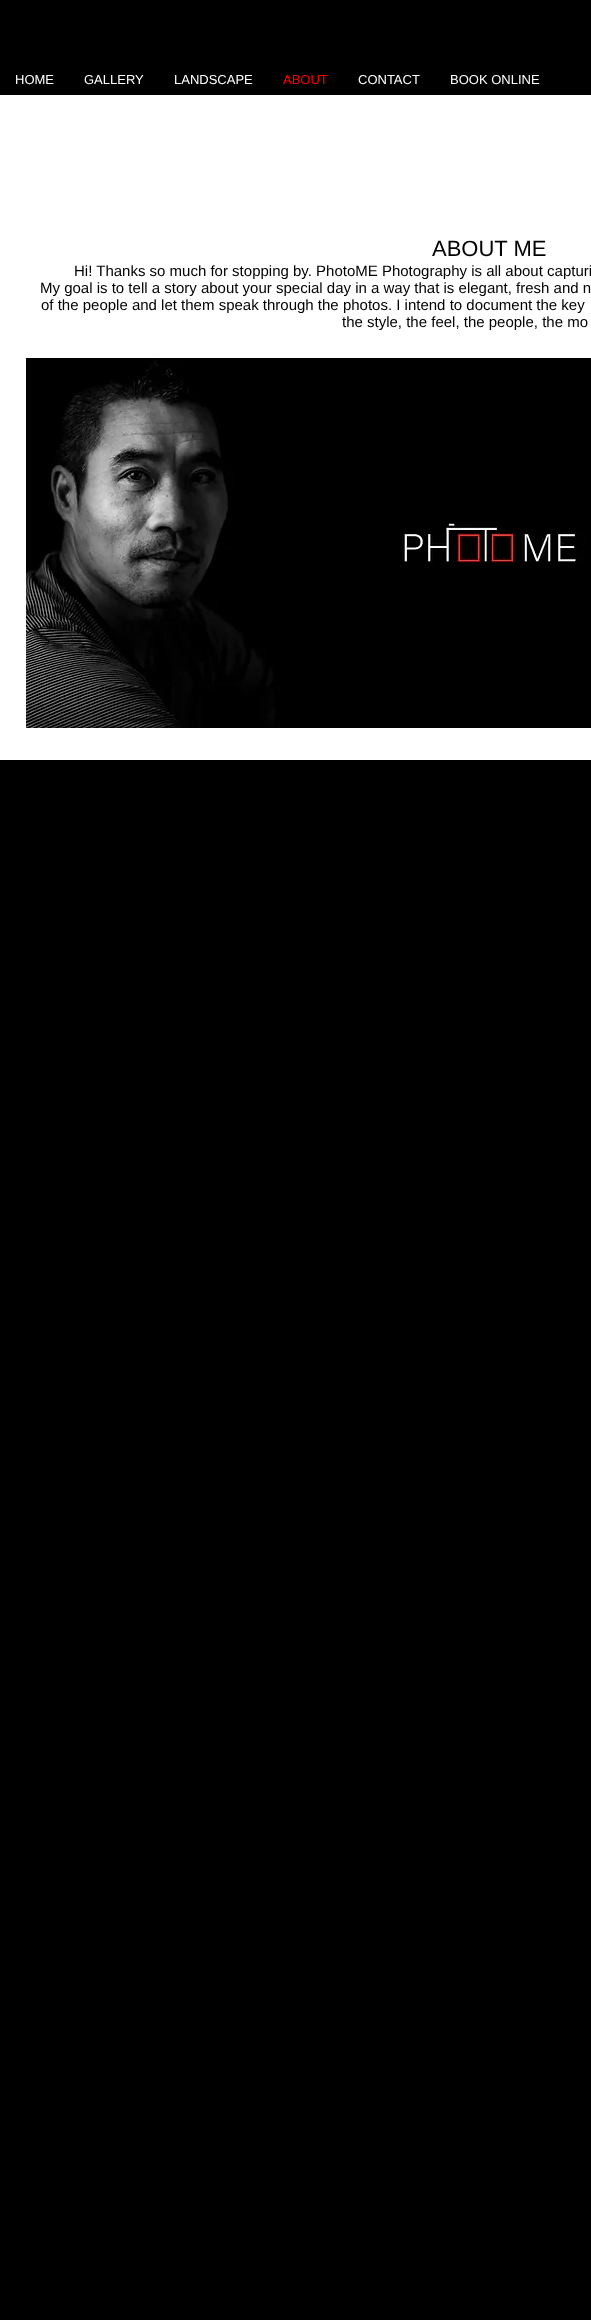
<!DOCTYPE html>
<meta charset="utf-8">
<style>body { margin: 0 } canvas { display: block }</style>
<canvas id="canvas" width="591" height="2320"></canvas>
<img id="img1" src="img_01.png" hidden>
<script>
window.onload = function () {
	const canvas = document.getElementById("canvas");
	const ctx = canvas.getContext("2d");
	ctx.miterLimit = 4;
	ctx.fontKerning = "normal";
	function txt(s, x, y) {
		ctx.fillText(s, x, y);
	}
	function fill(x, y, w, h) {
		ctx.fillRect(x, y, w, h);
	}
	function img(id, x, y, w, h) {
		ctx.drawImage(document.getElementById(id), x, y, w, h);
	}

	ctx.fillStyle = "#000000";
	fill(0, 0, 591, 2320);
	ctx.fillStyle = "#FFFFFF";
	fill(0, 95, 591, 665);
	img("img1", 26, 358, 565, 370);
	ctx.font = "13px Liberation Sans";
	txt("HOME", 15, 84);
	txt("GALLERY", 84, 84);
	txt("LANDSCAPE", 174, 84);
	ctx.fillStyle = "#FF0000";
	txt("ABOUT", 283, 84);
	ctx.fillStyle = "#FFFFFF";
	txt("CONTACT", 358, 84);
	txt("BOOK ONLINE", 450, 84);
	ctx.font = "22px Liberation Sans";
	ctx.fillStyle = "#000000";
	txt("ABOUT ME", 432, 256);
	ctx.font = "15px Liberation Sans";
	txt("Hi! Thanks so much for stopping by. PhotoME Photography is all about capturi", 74, 276);
	txt("My goal is to tell a story about your special day in a way that is elegant, fresh and n", 40, 293);
	txt("of the people and let them speak through the photos. I intend to document the key", 41, 310);
	txt("the style, the feel, the people, the mo", 342, 327);
};
</script>
